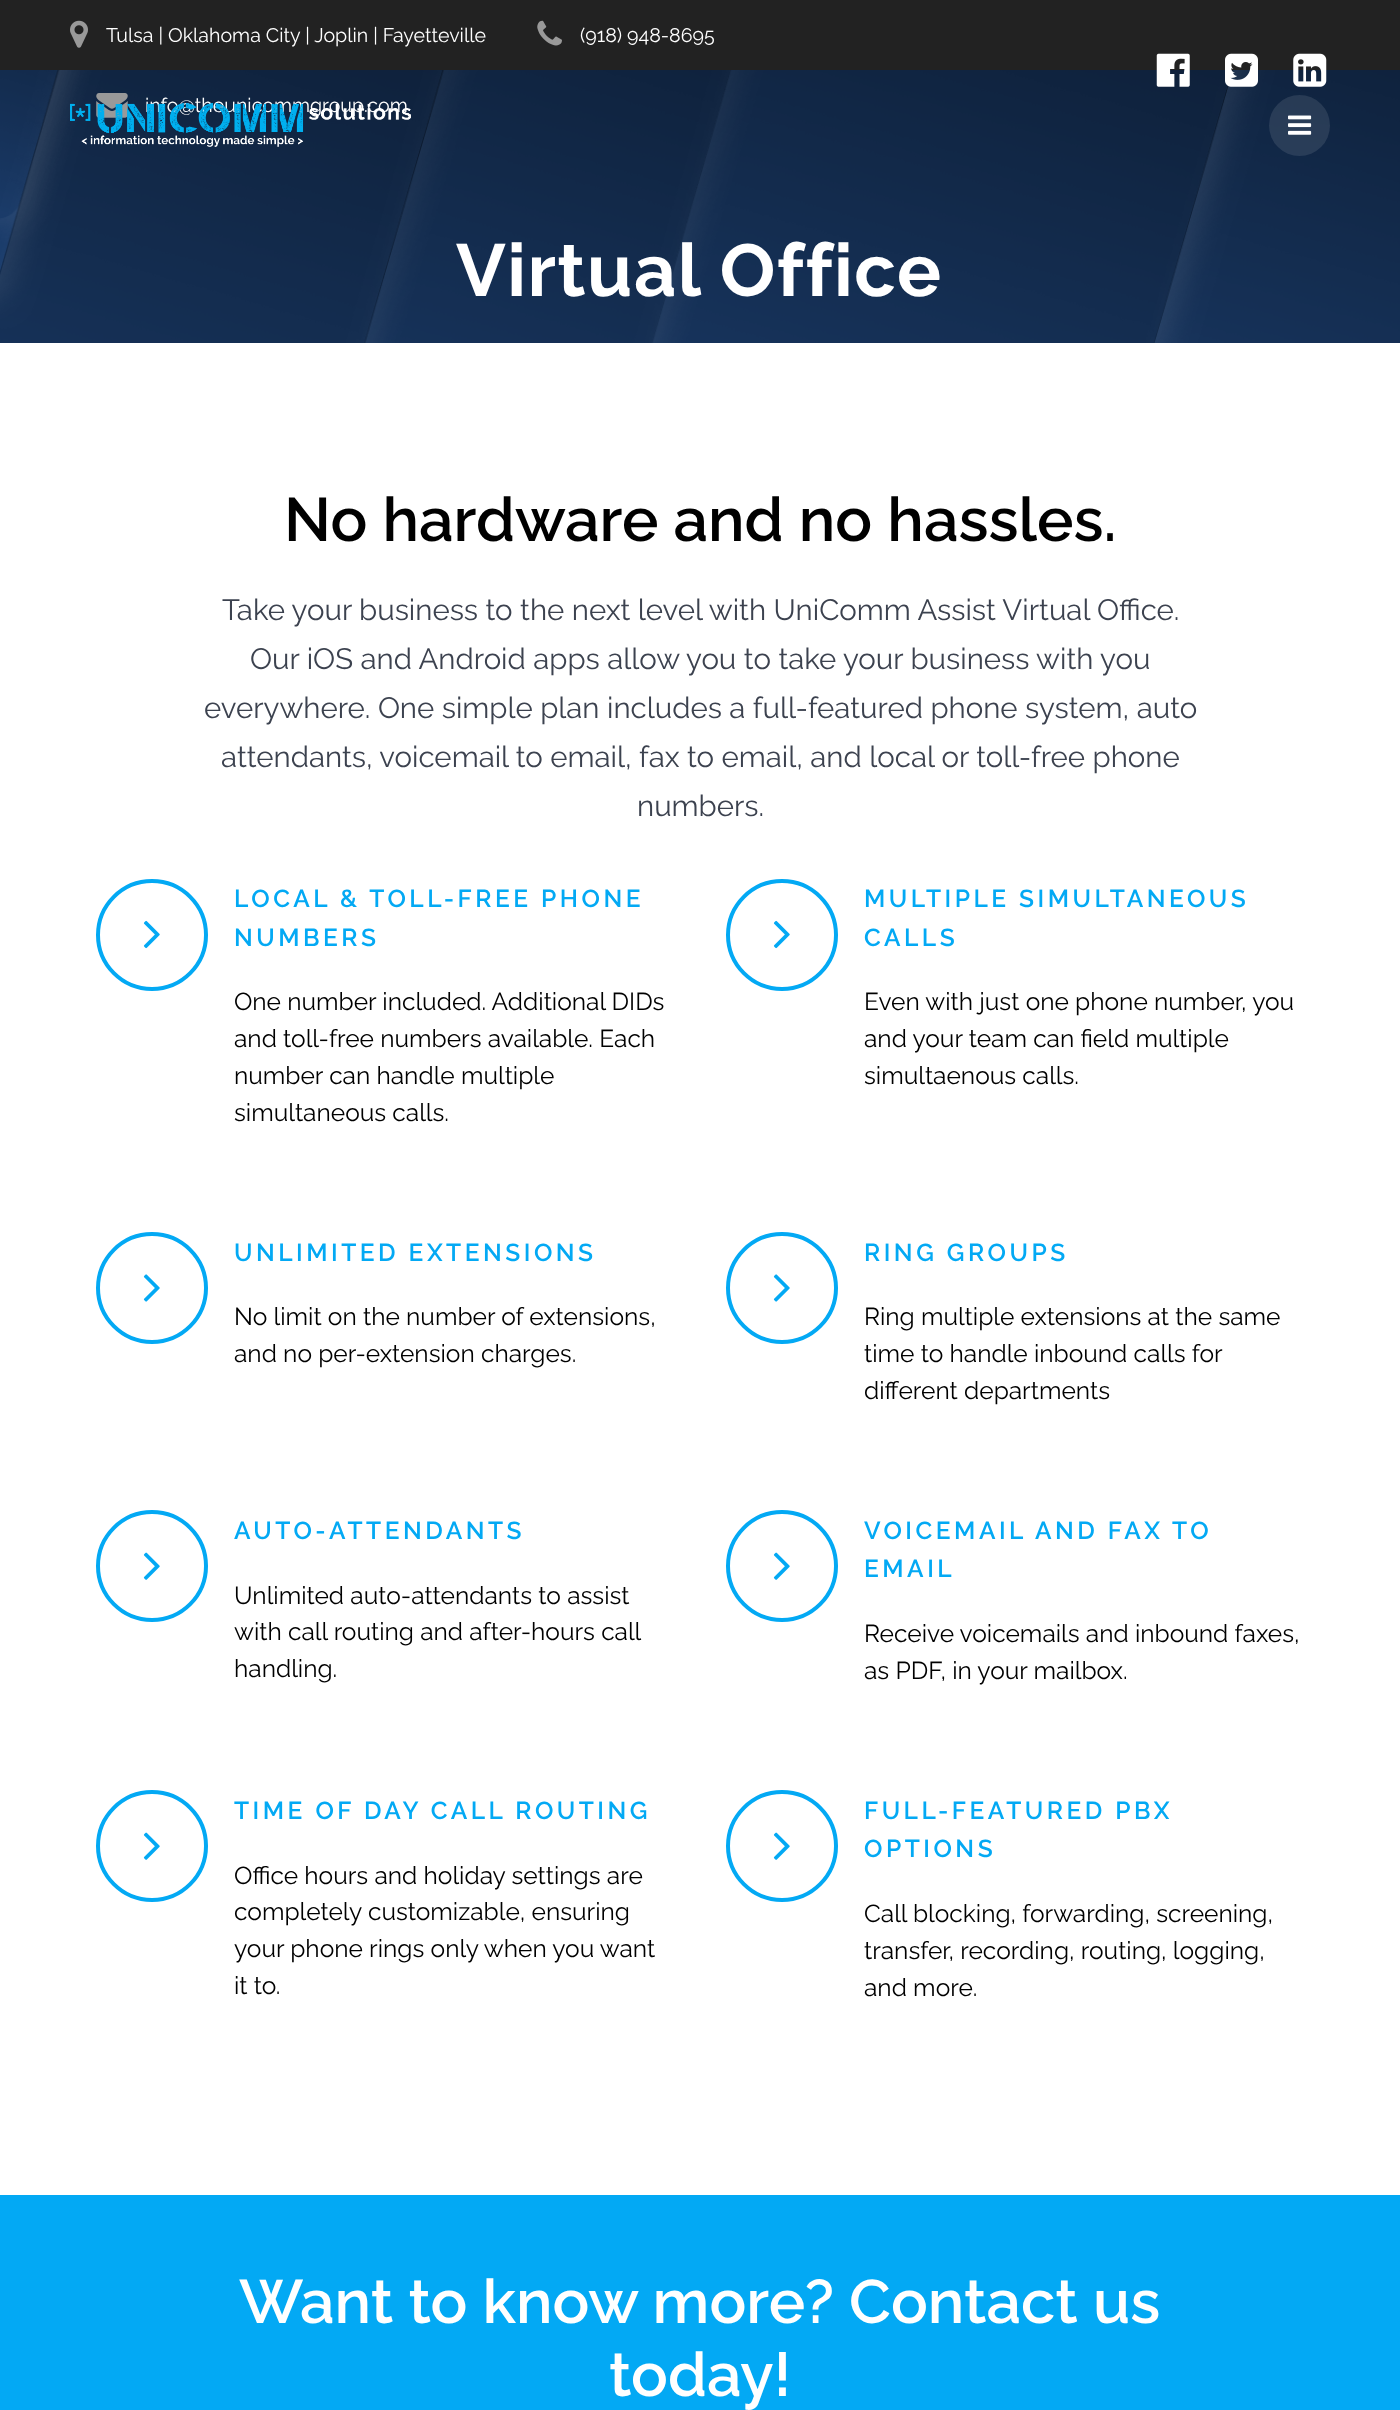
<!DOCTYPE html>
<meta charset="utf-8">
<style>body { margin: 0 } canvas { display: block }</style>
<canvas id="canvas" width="1400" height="2410"></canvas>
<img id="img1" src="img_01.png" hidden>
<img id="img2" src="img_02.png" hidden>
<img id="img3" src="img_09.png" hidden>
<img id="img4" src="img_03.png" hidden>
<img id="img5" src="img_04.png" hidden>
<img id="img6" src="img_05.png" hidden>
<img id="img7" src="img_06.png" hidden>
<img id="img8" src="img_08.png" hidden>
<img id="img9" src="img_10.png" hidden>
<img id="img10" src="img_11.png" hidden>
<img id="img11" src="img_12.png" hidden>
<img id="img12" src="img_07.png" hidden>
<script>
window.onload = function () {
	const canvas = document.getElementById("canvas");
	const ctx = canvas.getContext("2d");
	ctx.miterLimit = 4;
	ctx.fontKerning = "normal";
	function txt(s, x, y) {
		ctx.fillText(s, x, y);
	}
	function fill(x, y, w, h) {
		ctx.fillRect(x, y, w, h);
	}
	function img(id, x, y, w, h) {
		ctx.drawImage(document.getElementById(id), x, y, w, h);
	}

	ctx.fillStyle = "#FFFFFF";
	fill(0, 0, 1400, 2410);
	ctx.fillStyle = "#222222";
	fill(0, 0, 1400, 70);
	img("img1", 70, 20, 18, 28);
	img("img2", 537, 20, 25, 26);
	ctx.fillStyle = "#1C3F70";
	fill(0, 70, 1400, 273);
	img("img3", 0, 70, 1400, 273);
	img("img4", 96, 93, 32, 25);
	img("img5", 1156, 53, 34, 34);
	img("img6", 1225, 53, 33, 34);
	img("img7", 1293, 53, 34, 34);
	ctx.fillStyle = "rgba(255, 255, 255, 0.1)";
	ctx.beginPath();
	ctx.arc(1299.5, 125.5, 30.5, 0, Math.PI * 2);
	ctx.fill();
	img("img8", 1288, 115, 24, 20);
	ctx.beginPath();
	ctx.arc(152, 935, 54, 0, Math.PI * 2);
	ctx.strokeStyle = "#03A9F4";
	ctx.lineWidth = 4;
	ctx.stroke();
	img("img9", 143, 920, 17, 29);
	ctx.beginPath();
	ctx.arc(782, 935, 54, 0, Math.PI * 2);
	ctx.stroke();
	img("img9", 773, 920, 17, 29);
	ctx.beginPath();
	ctx.arc(152, 1288, 54, 0, Math.PI * 2);
	ctx.stroke();
	img("img10", 143, 1274, 17, 28);
	ctx.beginPath();
	ctx.arc(782, 1288, 54, 0, Math.PI * 2);
	ctx.stroke();
	img("img10", 773, 1274, 17, 28);
	ctx.beginPath();
	ctx.arc(152, 1566, 54, 0, Math.PI * 2);
	ctx.stroke();
	img("img11", 143, 1552, 17, 28);
	ctx.beginPath();
	ctx.arc(782, 1566, 54, 0, Math.PI * 2);
	ctx.stroke();
	img("img11", 773, 1552, 17, 28);
	ctx.beginPath();
	ctx.arc(152, 1846, 54, 0, Math.PI * 2);
	ctx.stroke();
	img("img11", 143, 1832, 17, 28);
	ctx.beginPath();
	ctx.arc(782, 1846, 54, 0, Math.PI * 2);
	ctx.stroke();
	img("img11", 773, 1832, 17, 28);
	ctx.fillStyle = "#03A9F4";
	fill(0, 2195, 1400, 215);
	ctx.font = "19.6px Raleway";
	ctx.fillStyle = "#FFFFFF";
	txt("Tulsa | Oklahoma City | Joplin | Fayetteville", 106, 42);
	txt("(918) 948-8695", 580, 42);
	txt("info@theunicommgroup.com", 145, 112);
	img("img12", 70, 103, 341, 44);
	ctx.letterSpacing = "1.5px";
	ctx.font = "bold 73.5px Raleway";
	txt("Virtual Office", 456, 296);
	ctx.letterSpacing = "0px";
	ctx.font = "600 61.25px Raleway";
	ctx.fillStyle = "#000000";
	txt("No hardware and no hassles.", 284, 541);
	ctx.font = "29.4px Raleway";
	ctx.fillStyle = "#3C424F";
	txt("Take your business to the next level with UniComm Assist Virtual Office.", 222, 620);
	txt("Our iOS and Android apps allow you to take your business with you", 250, 669);
	txt("everywhere. One simple plan includes a full-featured phone system, auto", 204, 718);
	txt("attendants, voicemail to email, fax to email, and local or toll-free phone", 221, 767);
	txt("numbers.", 637, 816);
	ctx.letterSpacing = "3.5px";
	ctx.font = "600 24.5px Raleway";
	ctx.fillStyle = "#03A9F4";
	txt("LOCAL & TOLL-FREE PHONE", 234, 907);
	txt("NUMBERS", 234, 946);
	ctx.letterSpacing = "0px";
	ctx.font = "24.5px Raleway";
	ctx.fillStyle = "#000000";
	txt("One number included. Additional DIDs", 234, 1010);
	txt("and toll-free numbers available. Each", 234, 1047);
	txt("number can handle multiple", 234, 1084);
	txt("simultaneous calls.", 234, 1121);
	ctx.letterSpacing = "3.5px";
	ctx.font = "600 24.5px Raleway";
	ctx.fillStyle = "#03A9F4";
	txt("MULTIPLE SIMULTANEOUS", 864, 907);
	txt("CALLS", 864, 946);
	ctx.letterSpacing = "0px";
	ctx.font = "24.5px Raleway";
	ctx.fillStyle = "#000000";
	txt("Even with just one phone number, you", 864, 1010);
	txt("and your team can field multiple", 864, 1047);
	txt("simultaenous calls.", 864, 1084);
	ctx.letterSpacing = "3.5px";
	ctx.font = "600 24.5px Raleway";
	ctx.fillStyle = "#03A9F4";
	txt("UNLIMITED EXTENSIONS", 234, 1261);
	ctx.letterSpacing = "0px";
	ctx.font = "24.5px Raleway";
	ctx.fillStyle = "#000000";
	txt("No limit on the number of extensions,", 234, 1325);
	txt("and no per-extension charges.", 234, 1362);
	ctx.letterSpacing = "3.5px";
	ctx.font = "600 24.5px Raleway";
	ctx.fillStyle = "#03A9F4";
	txt("RING GROUPS", 864, 1261);
	ctx.letterSpacing = "0px";
	ctx.font = "24.5px Raleway";
	ctx.fillStyle = "#000000";
	txt("Ring multiple extensions at the same", 864, 1325);
	txt("time to handle inbound calls for", 864, 1362);
	txt("different departments", 864, 1399);
	ctx.letterSpacing = "3.5px";
	ctx.font = "600 24.5px Raleway";
	ctx.fillStyle = "#03A9F4";
	txt("AUTO-ATTENDANTS", 234, 1539);
	ctx.letterSpacing = "0px";
	ctx.font = "24.5px Raleway";
	ctx.fillStyle = "#000000";
	txt("Unlimited auto-attendants to assist", 234, 1604);
	txt("with call routing and after-hours call", 234, 1640);
	txt("handling.", 234, 1677);
	ctx.letterSpacing = "3.5px";
	ctx.font = "600 24.5px Raleway";
	ctx.fillStyle = "#03A9F4";
	txt("VOICEMAIL AND FAX TO", 864, 1539);
	txt("EMAIL", 864, 1577);
	ctx.letterSpacing = "0px";
	ctx.font = "24.5px Raleway";
	ctx.fillStyle = "#000000";
	txt("Receive voicemails and inbound faxes,", 864, 1642);
	txt("as PDF, in your mailbox.", 864, 1679);
	ctx.letterSpacing = "3.5px";
	ctx.font = "600 24.5px Raleway";
	ctx.fillStyle = "#03A9F4";
	txt("TIME OF DAY CALL ROUTING", 234, 1819);
	ctx.letterSpacing = "0px";
	ctx.font = "24.5px Raleway";
	ctx.fillStyle = "#000000";
	txt("Office hours and holiday settings are", 234, 1884);
	txt("completely customizable, ensuring", 234, 1920);
	txt("your phone rings only when you want", 234, 1957);
	txt("it to.", 234, 1994);
	ctx.letterSpacing = "3.5px";
	ctx.font = "600 24.5px Raleway";
	ctx.fillStyle = "#03A9F4";
	txt("FULL-FEATURED PBX", 864, 1819);
	txt("OPTIONS", 864, 1857);
	ctx.letterSpacing = "0px";
	ctx.font = "24.5px Raleway";
	ctx.fillStyle = "#000000";
	txt("Call blocking, forwarding, screening,", 864, 1922);
	txt("transfer, recording, routing, logging,", 864, 1959);
	txt("and more.", 864, 1996);
	ctx.font = "600 61.25px Raleway";
	ctx.fillStyle = "#FFFFFF";
	txt("Want to know more? Contact us", 239, 2323);
	txt("today!", 609, 2396);
};
</script>
